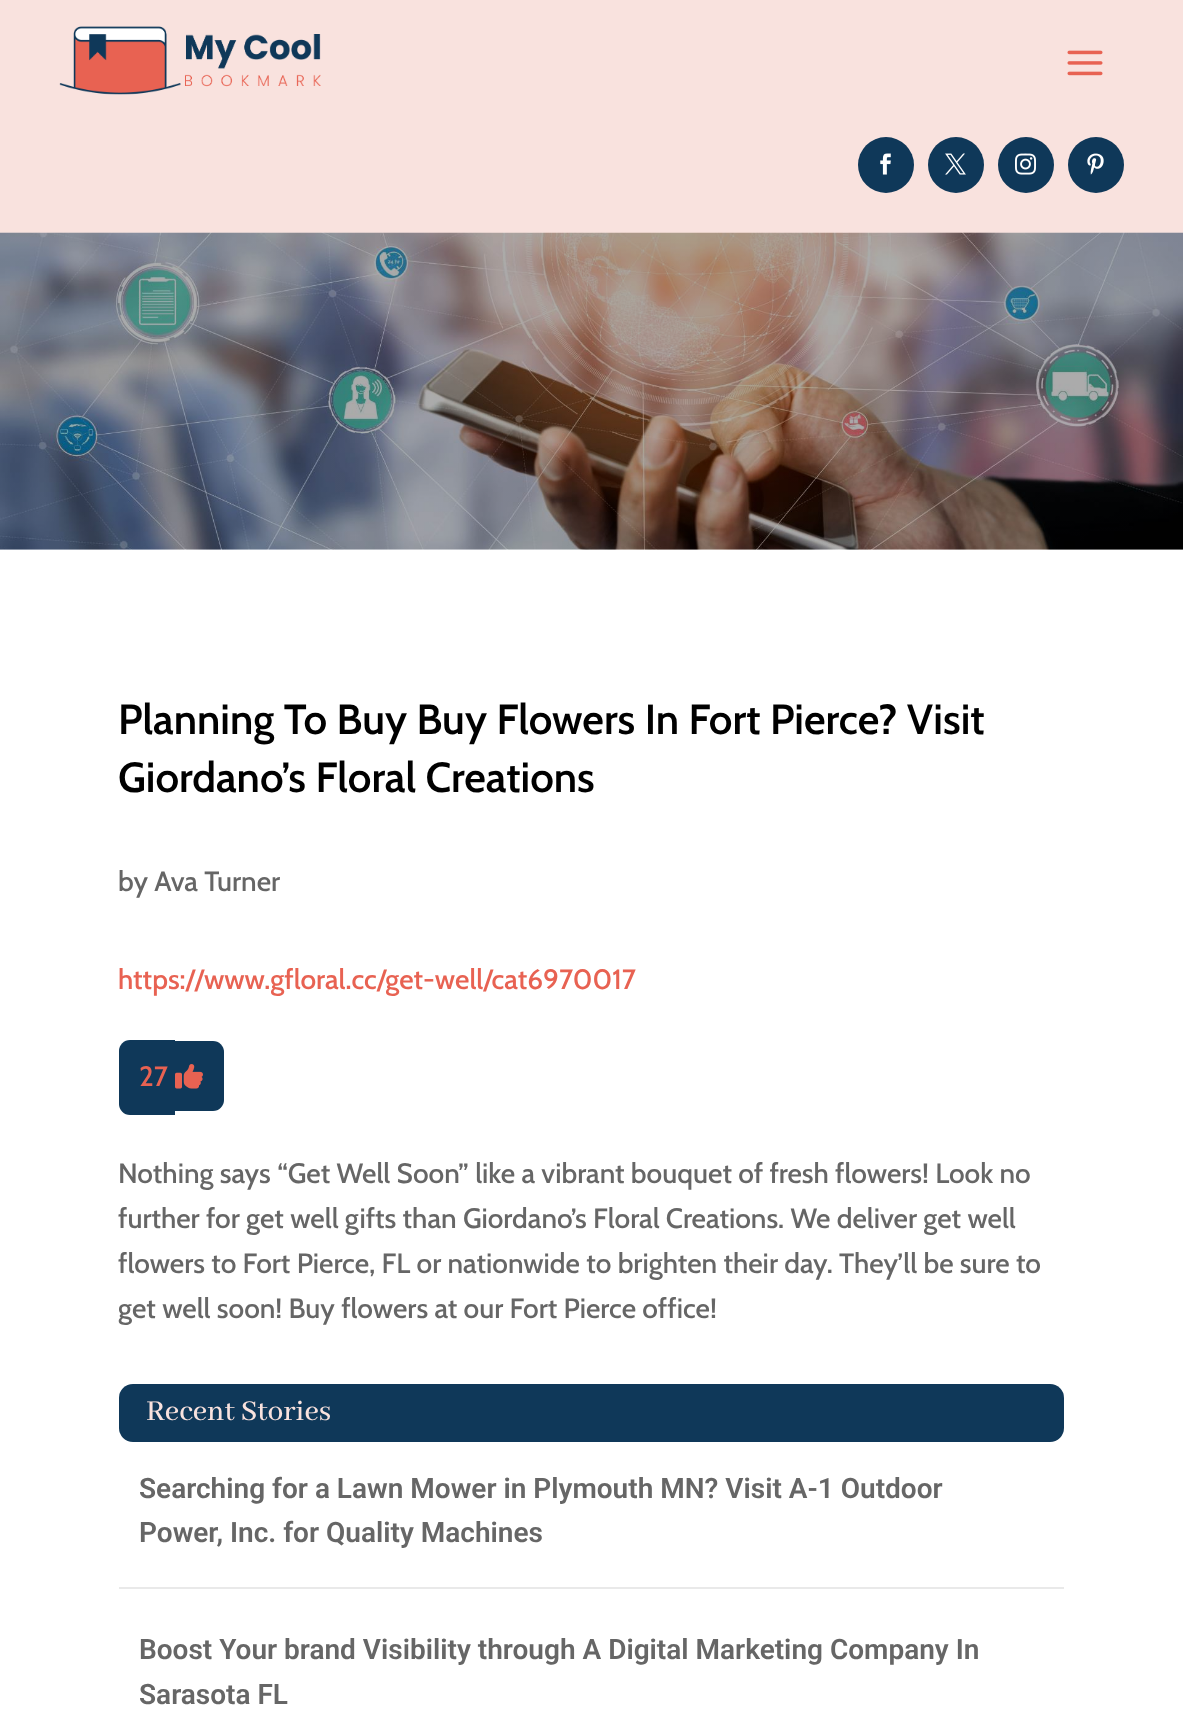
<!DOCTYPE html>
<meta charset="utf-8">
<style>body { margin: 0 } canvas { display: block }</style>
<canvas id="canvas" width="1183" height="1735"></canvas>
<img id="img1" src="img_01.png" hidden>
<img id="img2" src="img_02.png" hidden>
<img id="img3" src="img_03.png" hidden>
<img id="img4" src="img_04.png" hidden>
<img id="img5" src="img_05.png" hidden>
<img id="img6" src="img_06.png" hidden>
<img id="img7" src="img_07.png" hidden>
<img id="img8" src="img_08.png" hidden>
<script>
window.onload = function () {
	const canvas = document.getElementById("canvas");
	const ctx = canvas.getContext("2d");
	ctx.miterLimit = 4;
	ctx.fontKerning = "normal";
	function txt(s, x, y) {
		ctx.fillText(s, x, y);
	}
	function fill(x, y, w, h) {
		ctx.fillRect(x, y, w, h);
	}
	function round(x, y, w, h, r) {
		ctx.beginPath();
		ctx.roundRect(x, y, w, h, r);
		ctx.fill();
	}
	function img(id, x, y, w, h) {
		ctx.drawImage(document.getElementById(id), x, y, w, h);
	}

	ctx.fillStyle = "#FFFFFF";
	fill(0, 0, 1183, 1735);
	ctx.fillStyle = "#F9E2DE";
	fill(0, 0, 1183, 233);
	img("img1", 59, 26, 262, 69);
	img("img2", 1067, 50, 36, 26);
	ctx.fillStyle = "#0F3859";
	ctx.beginPath();
	ctx.arc(886, 165, 28, 0, Math.PI * 2);
	ctx.fill();
	img("img3", 880, 153, 11, 22);
	ctx.beginPath();
	ctx.arc(956, 165, 28, 0, Math.PI * 2);
	ctx.fill();
	img("img4", 945, 153, 21, 22);
	ctx.beginPath();
	ctx.arc(1026, 165, 28, 0, Math.PI * 2);
	ctx.fill();
	img("img5", 1015, 153, 21, 22);
	ctx.beginPath();
	ctx.arc(1096, 165, 28, 0, Math.PI * 2);
	ctx.fill();
	img("img6", 1087, 153, 17, 22);
	img("img7", 0, 232, 1183, 318);
	ctx.beginPath();
	ctx.roundRect(119, 1040, 56, 75, [11, 0, 0, 11]);
	ctx.fill();
	ctx.beginPath();
	ctx.roundRect(175, 1041, 49, 70, [0, 11, 11, 0]);
	ctx.fill();
	img("img8", 175, 1064, 28, 25);
	round(119, 1384, 945, 58, 14);
	ctx.fillStyle = "#E9E9E9";
	fill(119, 1587, 945, 2);
	ctx.font = "600 42px Cabin";
	ctx.fillStyle = "#000000";
	txt("Planning To Buy Buy Flowers In Fort Pierce? Visit", 118, 734);
	txt("Giordano’s Floral Creations", 118, 792);
	ctx.font = "500 28px Cabin";
	ctx.fillStyle = "#666666";
	txt("by Ava Turner", 118, 891);
	ctx.fillStyle = "#E86252";
	txt("https://www.gfloral.cc/get-well/cat6970017", 118, 989);
	txt("27", 139, 1086);
	ctx.fillStyle = "#666666";
	txt("Nothing says “Get Well Soon” like a vibrant bouquet of fresh flowers! Look no", 118, 1183);
	txt("further for get well gifts than Giordano’s Floral Creations. We deliver get well", 118, 1228);
	txt("flowers to Fort Pierce, FL or nationwide to brighten their day. They’ll be sure to", 118, 1273);
	txt("get well soon! Buy flowers at our Fort Pierce office!", 118, 1318);
	ctx.font = "500 31.5px Abhaya Libre Medium";
	ctx.fillStyle = "#F9E2DE";
	txt("Recent Stories", 146, 1420);
	ctx.font = "600 28px Roboto";
	ctx.fillStyle = "#666666";
	txt("Searching for a Lawn Mower in Plymouth MN? Visit A-1 Outdoor", 139, 1498);
	txt("Power, Inc. for Quality Machines", 139, 1542);
	txt("Boost Your brand Visibility through A Digital Marketing Company In", 139, 1659);
	txt("Sarasota FL", 139, 1704);
};
</script>
